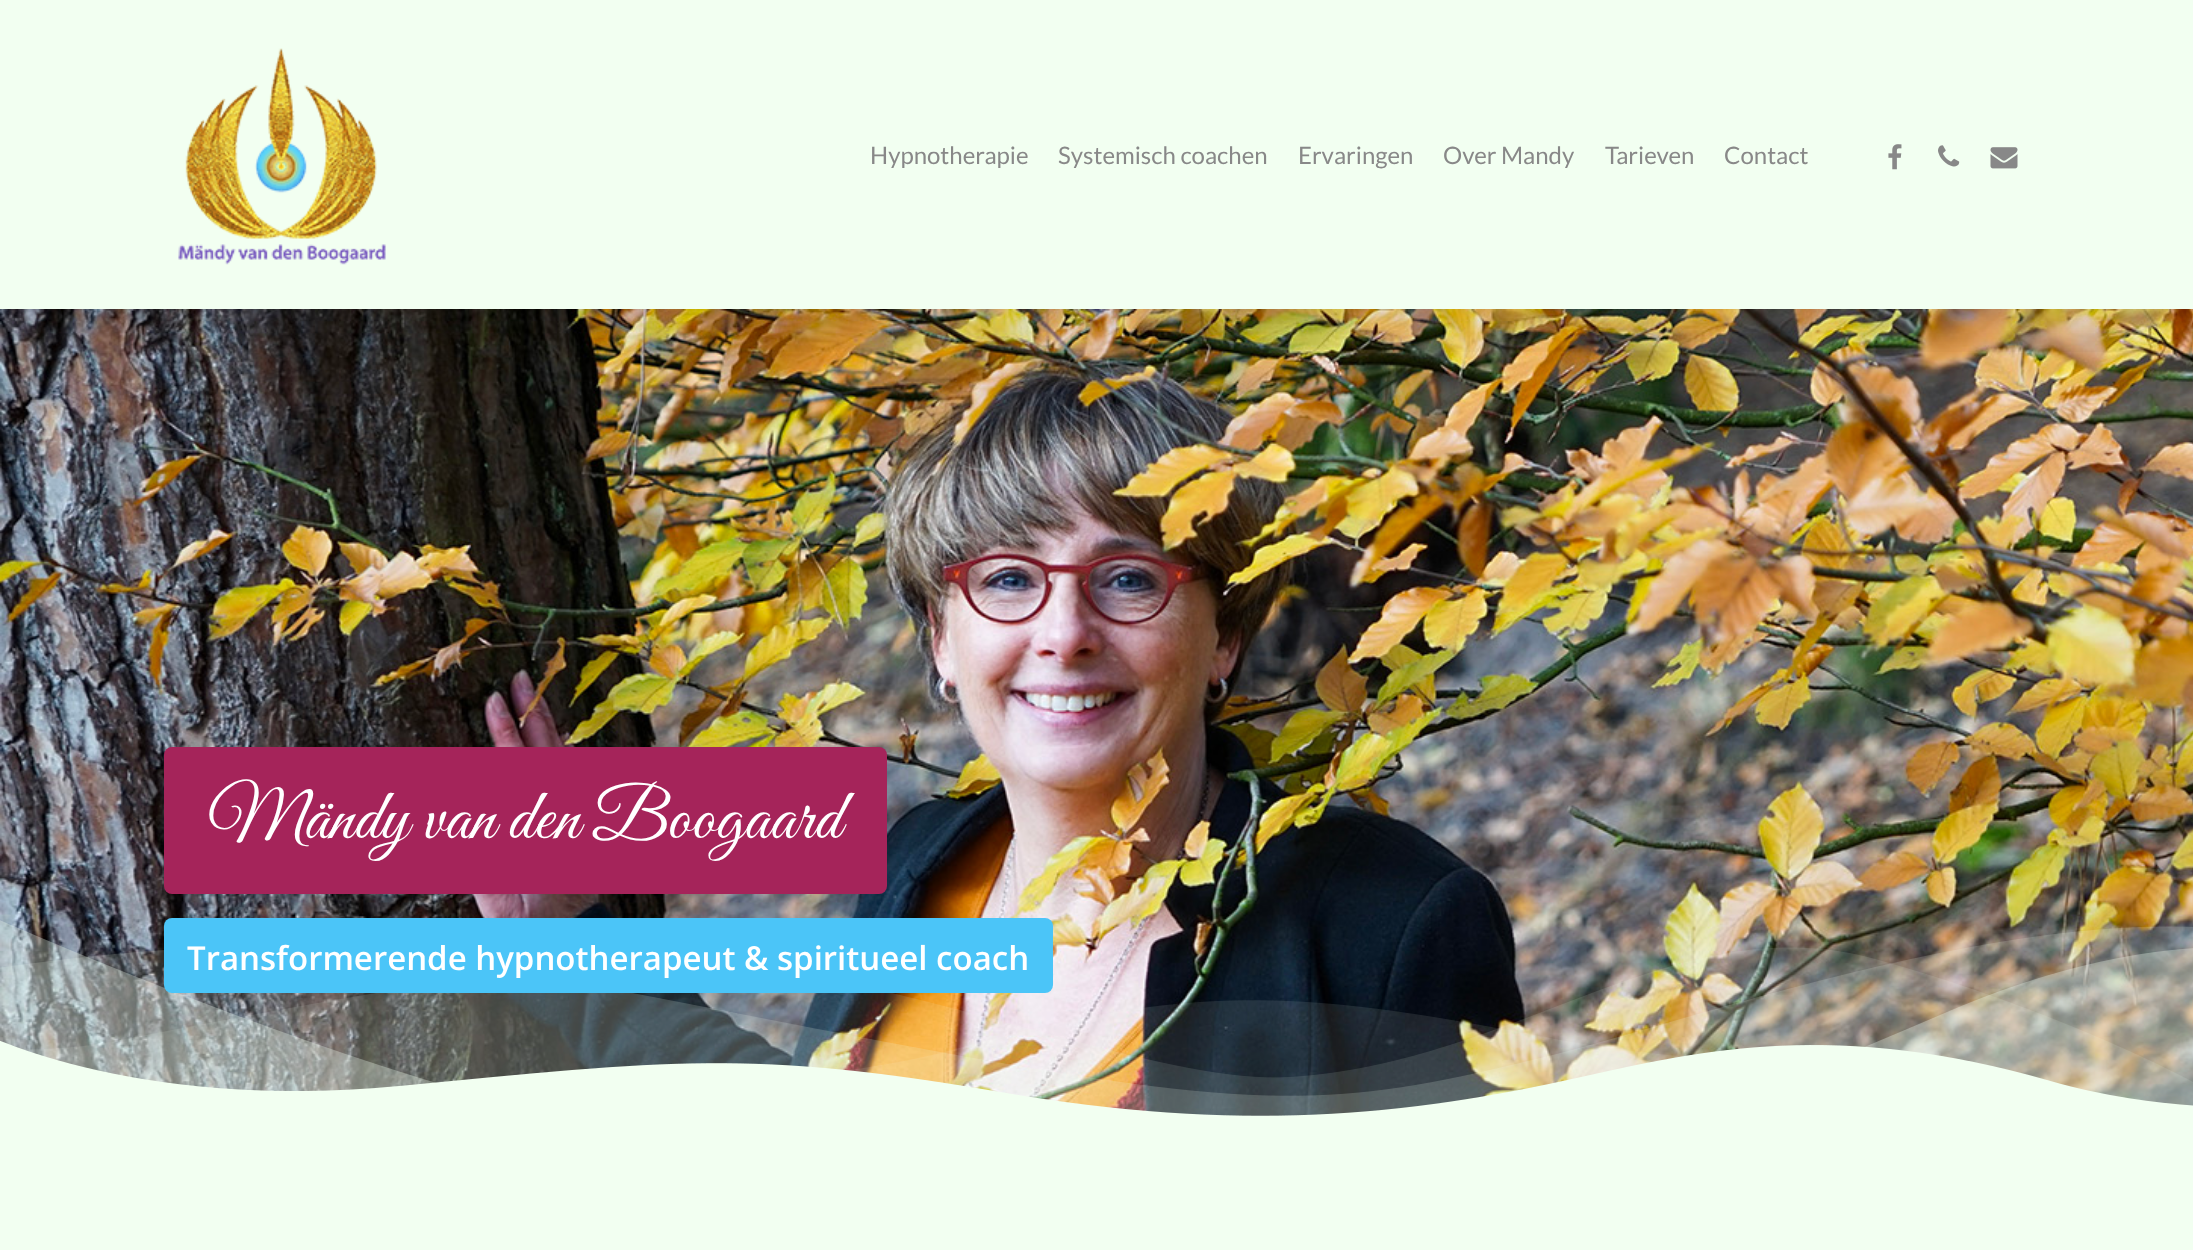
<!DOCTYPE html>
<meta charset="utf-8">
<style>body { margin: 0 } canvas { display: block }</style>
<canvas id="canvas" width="2193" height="1250"></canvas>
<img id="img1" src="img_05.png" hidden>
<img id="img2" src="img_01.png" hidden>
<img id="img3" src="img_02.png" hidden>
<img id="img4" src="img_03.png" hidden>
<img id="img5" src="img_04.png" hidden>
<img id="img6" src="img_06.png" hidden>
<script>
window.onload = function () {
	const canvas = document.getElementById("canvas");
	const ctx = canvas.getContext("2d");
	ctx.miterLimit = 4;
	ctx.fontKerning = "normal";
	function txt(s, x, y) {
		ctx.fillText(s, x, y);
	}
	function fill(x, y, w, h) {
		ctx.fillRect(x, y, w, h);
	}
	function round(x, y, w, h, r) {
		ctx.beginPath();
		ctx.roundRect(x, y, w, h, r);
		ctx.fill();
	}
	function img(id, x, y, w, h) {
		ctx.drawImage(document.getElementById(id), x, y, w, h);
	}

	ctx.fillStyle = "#F2FFF1";
	fill(0, 0, 2193, 1250);
	img("img1", 0, 309, 2193, 807);
	ctx.save();
	ctx.beginPath();
	ctx.rect(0, 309, 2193, 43);
	ctx.clip();
	ctx.fillStyle = "rgba(0, 0, 0, 0.15)";
	ctx.filter = "blur(34px)";
	ctx.beginPath();
	ctx.rect(0, 5, 2193, 309);
	ctx.fill();
	ctx.filter = "none";
	ctx.restore();
	img("img2", 178, 48, 208, 217);
	img("img3", 1888, 144, 14, 26);
	img("img4", 1938, 145, 22, 22);
	img("img5", 1990, 147, 28, 22);
	ctx.fillStyle = "#A5245A";
	round(164, 747, 723, 147, 8);
	img("img6", 0, 920, 2193, 207);
	ctx.fillStyle = "#4BC5F8";
	round(164, 918, 889, 75, 8);
	ctx.font = "24px Lato";
	ctx.fillStyle = "#888888";
	txt("Hypnotherapie", 870, 164);
	txt("Systemisch coachen", 1058, 164);
	txt("Ervaringen", 1298, 164);
	txt("Over Mandy", 1443, 164);
	txt("Tarieven", 1605, 164);
	txt("Contact", 1724, 164);
	ctx.font = "72px Great Vibes";
	ctx.fillStyle = "#FFFFFF";
	txt("Mändy van den Boogaard", 208, 838);
	ctx.font = "600 33px Open Sans";
	txt("Transformerende hypnotherapeut & spiritueel coach", 187, 970);
};
</script>
